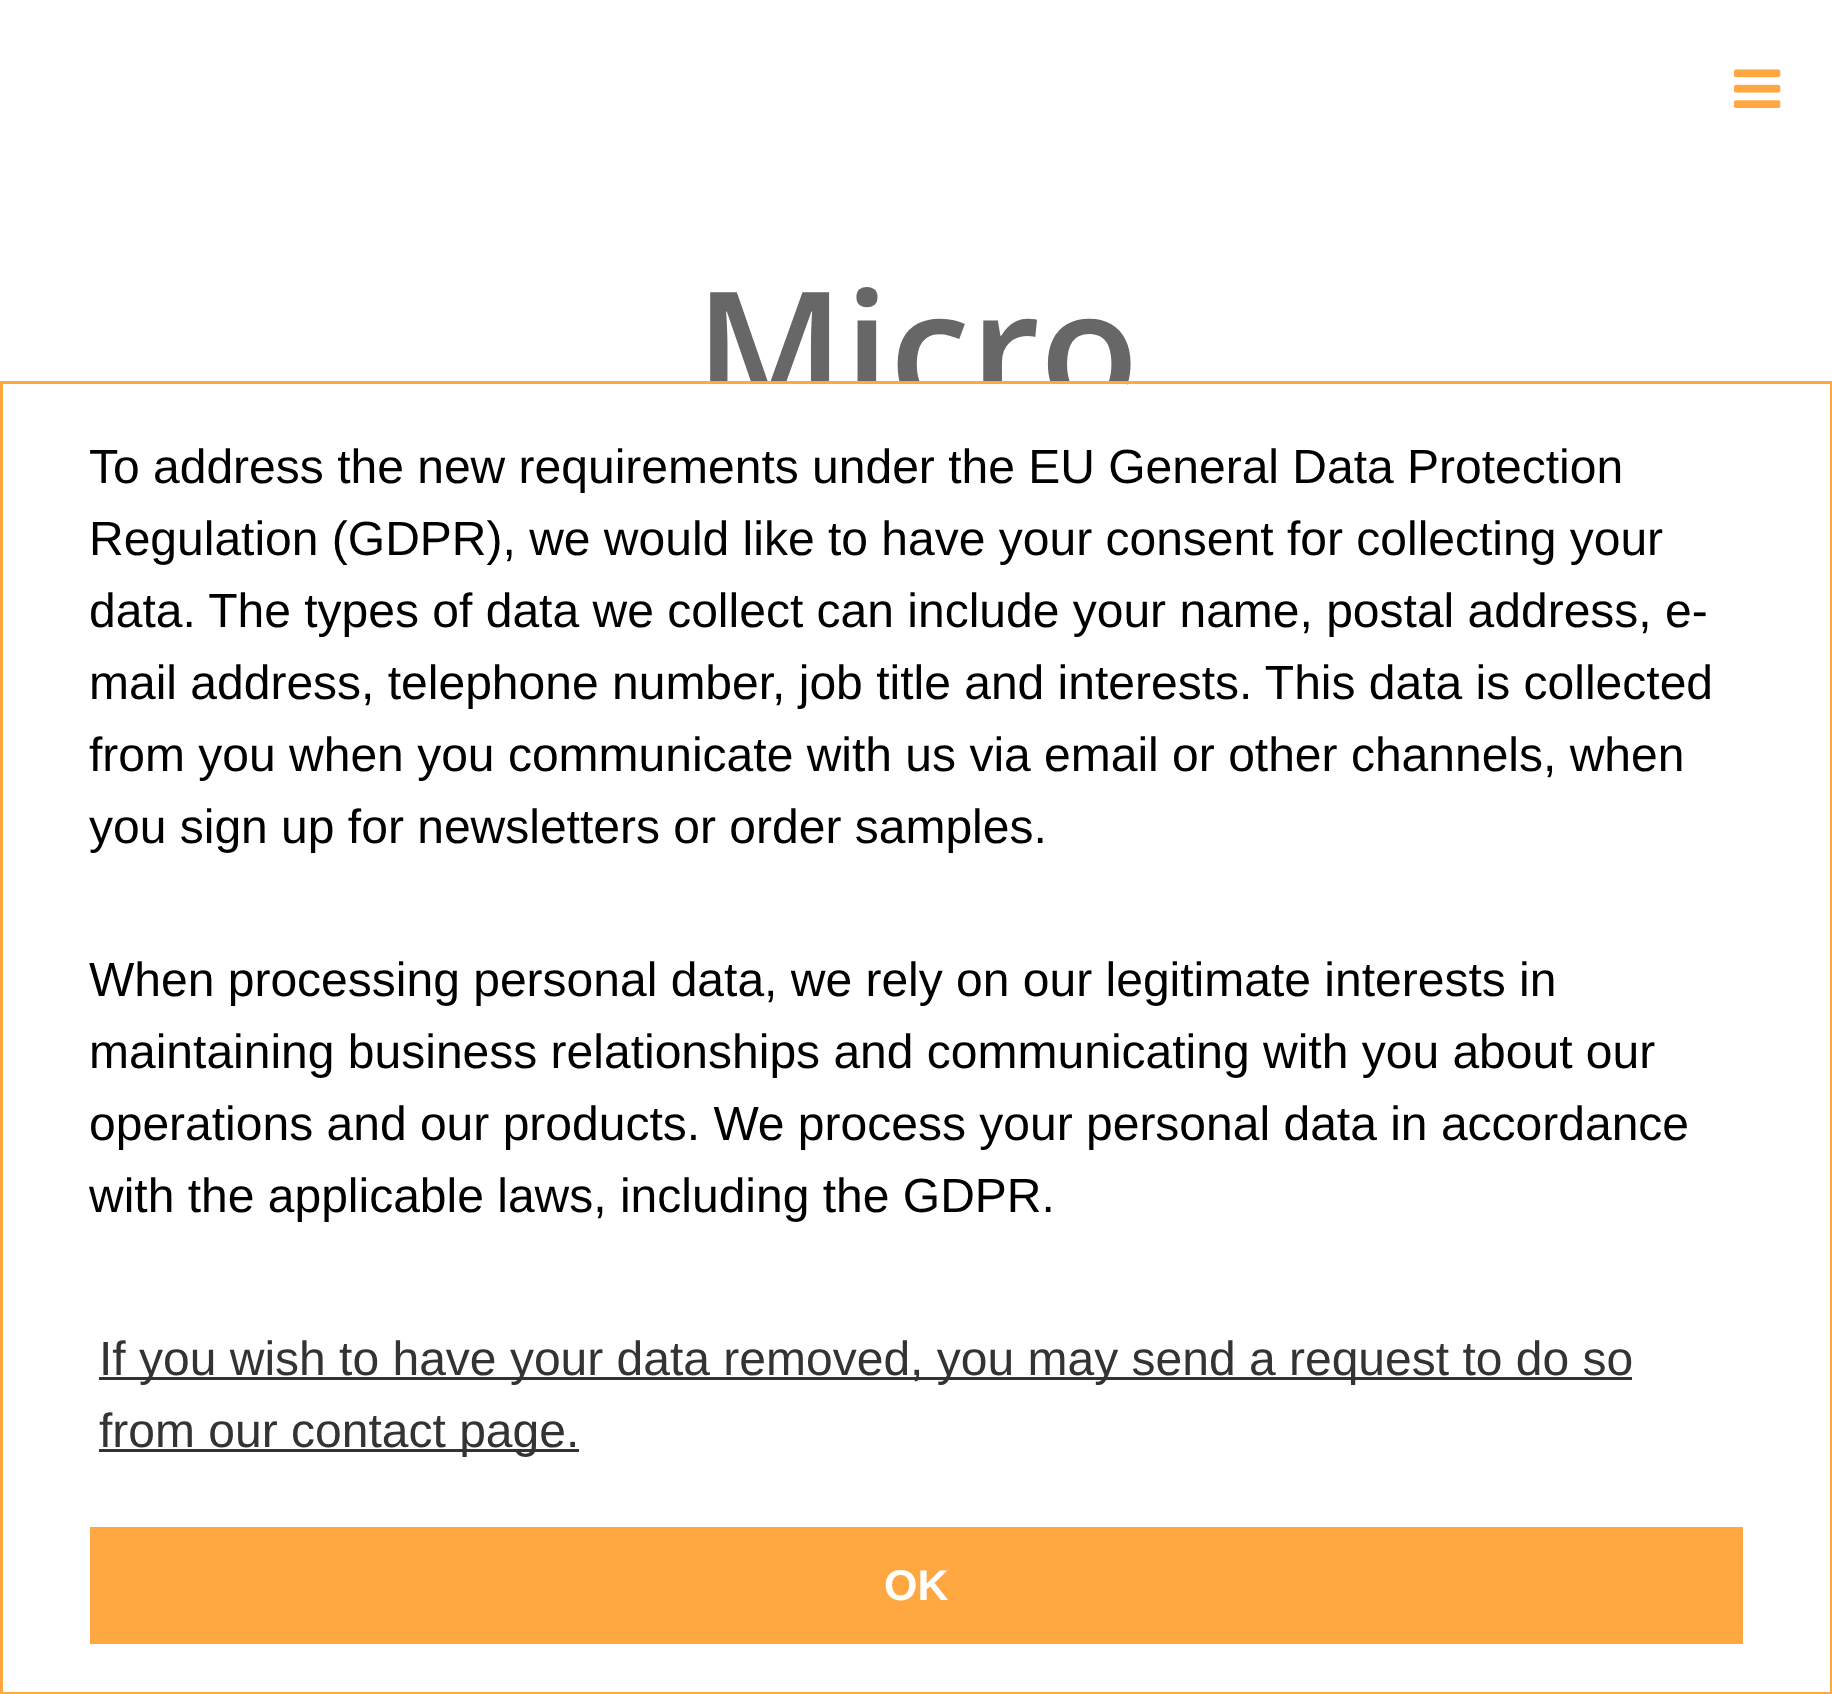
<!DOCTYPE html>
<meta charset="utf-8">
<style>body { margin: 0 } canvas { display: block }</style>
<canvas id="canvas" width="1832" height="1694"></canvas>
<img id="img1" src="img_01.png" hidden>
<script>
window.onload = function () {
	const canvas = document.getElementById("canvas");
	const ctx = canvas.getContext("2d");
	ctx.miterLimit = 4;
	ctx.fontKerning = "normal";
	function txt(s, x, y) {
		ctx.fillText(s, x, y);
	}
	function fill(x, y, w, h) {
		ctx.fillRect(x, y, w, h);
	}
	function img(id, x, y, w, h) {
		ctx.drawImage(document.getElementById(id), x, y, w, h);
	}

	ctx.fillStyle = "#FFFFFF";
	fill(0, 0, 1832, 1694);
	img("img1", 1734, 69, 47, 39);
	ctx.font = "600 162px Open Sans";
	ctx.fillStyle = "#676767";
	txt("Micro", 695, 408);
	ctx.fillStyle = "#FFFFFF";
	fill(709, 384, 418, 26);
	ctx.strokeStyle = "#FFA841";
	ctx.lineWidth = 3;
	ctx.strokeRect(1.5, 382.5, 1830, 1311);
	ctx.font = "48px Liberation Sans";
	ctx.fillStyle = "#000000";
	txt("To address the new requirements under the EU General Data Protection", 89, 483);
	txt("Regulation (GDPR), we would like to have your consent for collecting your", 89, 555);
	txt("data. The types of data we collect can include your name, postal address, e-", 89, 627);
	txt("mail address, telephone number, job title and interests. This data is collected", 89, 699);
	txt("from you when you communicate with us via email or other channels, when", 89, 771);
	txt("you sign up for newsletters or order samples.", 89, 843);
	txt("When processing personal data, we rely on our legitimate interests in", 89, 996);
	txt("maintaining business relationships and communicating with you about our", 89, 1068);
	txt("operations and our products. We process your personal data in accordance", 89, 1140);
	txt("with the applicable laws, including the GDPR.", 89, 1212);
	ctx.fillStyle = "#333333";
	fill(99, 1377, 1533, 3);
	txt("If you wish to have your data removed, you may send a request to do so", 99, 1375);
	fill(99, 1449, 480, 3);
	txt("from our contact page.", 99, 1447);
	ctx.fillStyle = "#FFA841";
	fill(90, 1527, 1653, 117);
	ctx.font = "bold 43px Liberation Sans";
	ctx.fillStyle = "#FFFFFF";
	txt("OK", 884, 1600);
};
</script>
